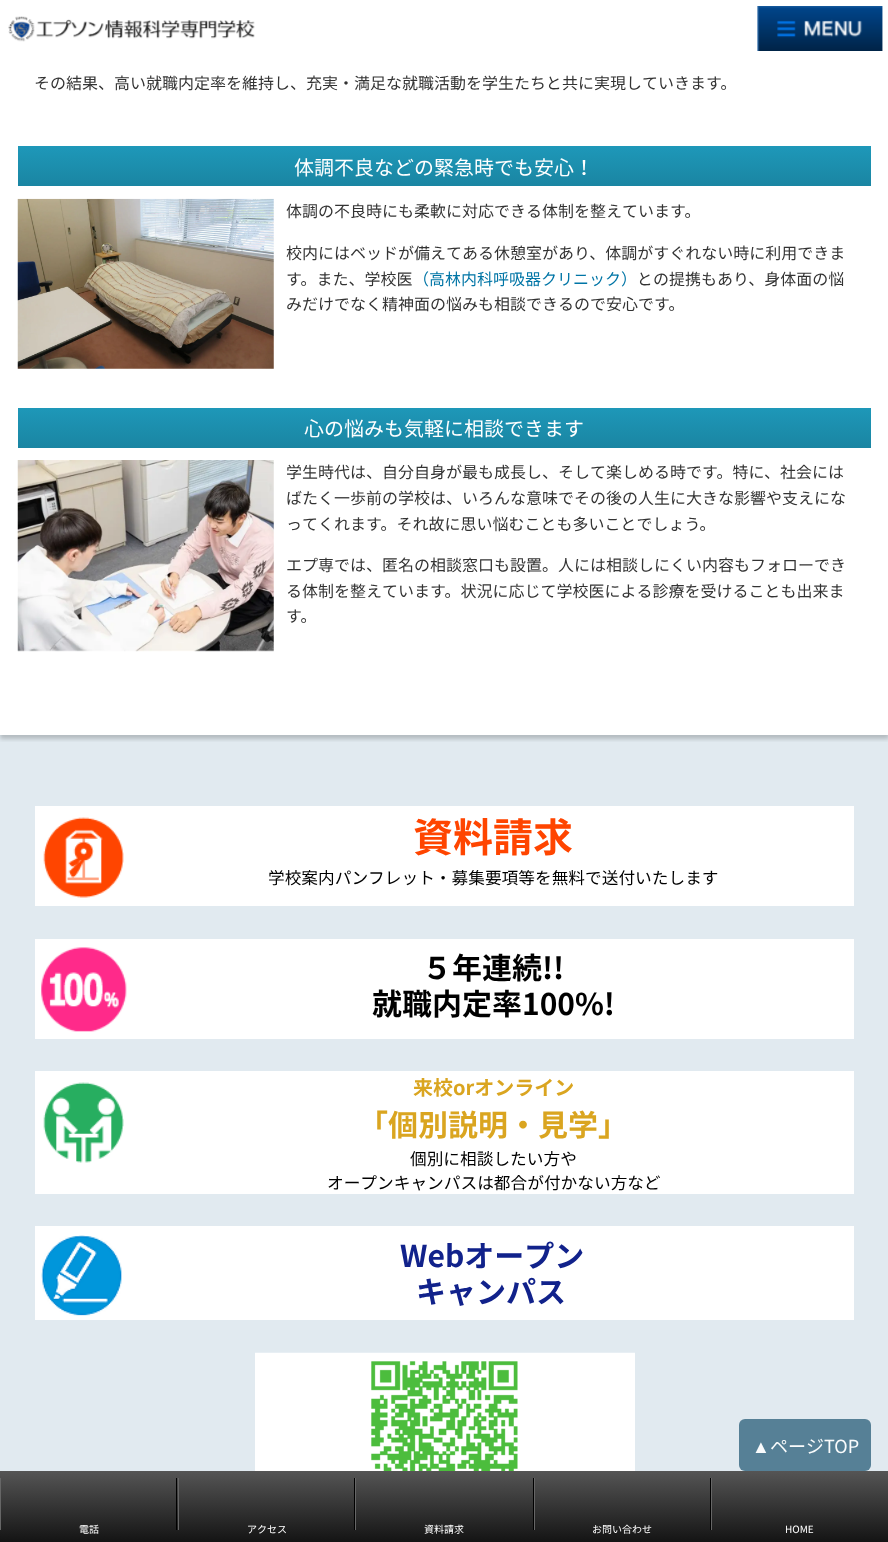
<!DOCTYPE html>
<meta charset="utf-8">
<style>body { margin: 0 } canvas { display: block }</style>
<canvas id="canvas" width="888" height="1542"></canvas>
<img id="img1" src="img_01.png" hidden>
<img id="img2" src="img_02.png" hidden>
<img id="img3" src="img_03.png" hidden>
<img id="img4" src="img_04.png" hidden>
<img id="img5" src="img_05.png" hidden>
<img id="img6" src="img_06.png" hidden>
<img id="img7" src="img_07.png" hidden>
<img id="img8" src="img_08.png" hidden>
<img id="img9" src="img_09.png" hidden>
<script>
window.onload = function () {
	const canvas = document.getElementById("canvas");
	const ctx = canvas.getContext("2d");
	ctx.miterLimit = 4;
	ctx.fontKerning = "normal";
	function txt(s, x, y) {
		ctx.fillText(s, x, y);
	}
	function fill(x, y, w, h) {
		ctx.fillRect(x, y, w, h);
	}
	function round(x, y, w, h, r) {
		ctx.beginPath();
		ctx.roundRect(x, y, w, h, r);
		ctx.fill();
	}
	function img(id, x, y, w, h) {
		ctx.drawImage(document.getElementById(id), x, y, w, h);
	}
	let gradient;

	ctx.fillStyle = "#FFFFFF";
	fill(0, 0, 888, 1542);
	ctx.fillStyle = "#E1EAF0";
	fill(0, 735, 888, 736);
	ctx.save();
	ctx.beginPath();
	ctx.rect(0, 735, 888, 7);
	ctx.clip();
	ctx.fillStyle = "rgba(0, 0, 0, 0.2)";
	ctx.filter = "blur(2px)";
	ctx.beginPath();
	ctx.rect(0, -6, 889, 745);
	ctx.fill();
	ctx.filter = "none";
	ctx.restore();
	img("img1", 8, 16, 247, 26);
	img("img2", 757, 6, 126, 45);
	gradient = ctx.createLinearGradient(444, 146, 444, 186);
	gradient.addColorStop(0, "#1E98B9");
	gradient.addColorStop(1, "#1A85A2");
	ctx.fillStyle = gradient;
	fill(18, 146, 853, 40);
	img("img3", 17, 198, 257, 171);
	gradient = ctx.createLinearGradient(444, 407, 444, 448);
	gradient.addColorStop(0, "#1E98B9");
	gradient.addColorStop(1, "#1A85A2");
	ctx.fillStyle = gradient;
	fill(18, 408, 853, 40);
	img("img4", 17, 460, 257, 192);
	ctx.fillStyle = "#FFFFFF";
	fill(35, 806, 819, 100);
	img("img5", 43, 817, 81, 81);
	fill(35, 939, 819, 100);
	img("img6", 41, 947, 86, 85);
	fill(35, 1071, 819, 123);
	img("img7", 43, 1082, 81, 81);
	fill(35, 1226, 819, 94);
	img("img8", 41, 1235, 81, 81);
	img("img9", 255, 1352, 380, 119);
	ctx.fillStyle = "#568096";
	round(739, 1419, 132, 52, 6);
	gradient = ctx.createLinearGradient(444, 1471, 444, 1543);
	gradient.addColorStop(0, "#555555");
	gradient.addColorStop(1, "#131313");
	ctx.fillStyle = gradient;
	fill(0, 1471, 888, 71);
	ctx.fillStyle = "#666666";
	fill(0, 1478, 1, 52);
	ctx.fillStyle = "#000000";
	fill(176, 1478, 1, 52);
	ctx.fillStyle = "#666666";
	fill(178, 1478, 1, 52);
	ctx.fillStyle = "#000000";
	fill(354, 1478, 1, 52);
	ctx.fillStyle = "#666666";
	fill(355, 1478, 1, 52);
	ctx.fillStyle = "#000000";
	fill(533, 1478, 1, 52);
	ctx.fillStyle = "#666666";
	fill(534, 1478, 1, 52);
	ctx.fillStyle = "#000000";
	fill(710, 1478, 1, 52);
	ctx.fillStyle = "#666666";
	fill(711, 1478, 1, 52);
	ctx.font = "16px Noto Sans JP";
	ctx.fillStyle = "#333333";
	txt("その結果、高い就職内定率を維持し、充実・満足な就職活動を学生たちと共に実現していきます。", 34, 89);
	ctx.font = "20px Noto Sans JP";
	ctx.fillStyle = "#FFFFFF";
	txt("体調不良などの緊急時でも安心！", 294, 175);
	ctx.font = "16px Noto Sans JP";
	ctx.fillStyle = "#333333";
	txt("体調の不良時にも柔軟に対応できる体制を整えています。", 286, 217);
	txt("校内にはベッドが備えてある休憩室があり、体調がすぐれない時に利用できま", 286, 259);
	txt("す。また、学校医", 286, 285);
	ctx.fillStyle = "#0075A6";
	txt("（高林内科呼吸器クリニック）", 413, 285);
	ctx.fillStyle = "#333333";
	txt("との提携もあり、身体面の悩", 637, 285);
	txt("みだけでなく精神面の悩みも相談できるので安心です。", 286, 310);
	ctx.font = "20px Noto Sans JP";
	ctx.fillStyle = "#FFFFFF";
	txt("心の悩みも気軽に相談できます", 304, 436);
	ctx.font = "16px Noto Sans JP";
	ctx.fillStyle = "#333333";
	txt("学生時代は、自分自身が最も成長し、そして楽しめる時です。特に、社会には", 286, 478);
	txt("ばたく一歩前の学校は、いろんな意味でその後の人生に大きな影響や支えにな", 286, 504);
	txt("ってくれます。それ故に思い悩むことも多いことでしょう。", 286, 530);
	txt("エプ専では、匿名の相談窓口も設置。人には相談しにくい内容もフォローでき", 286, 571);
	txt("る体制を整えています。状況に応じて学校医による診療を受けることも出来ま", 286, 597);
	txt("す。", 286, 622);
	ctx.font = "bold 40px Noto Sans JP";
	ctx.fillStyle = "#FF4500";
	txt("資料請求", 413, 852);
	ctx.font = "16.7px Noto Sans JP";
	ctx.fillStyle = "#000000";
	txt("学校案内パンフレット・募集要項等を無料で送付いたします", 268, 884);
	ctx.font = "bold 30px Noto Sans JP";
	txt("５年連続!!", 422, 979);
	txt("就職内定率100%!", 372, 1015);
	ctx.font = "bold 20px Noto Sans JP";
	ctx.fillStyle = "#DAA520";
	txt("来校orオンライン", 413, 1095);
	ctx.font = "bold 30px Noto Sans JP";
	txt("「個別説明・見学」", 358, 1136);
	ctx.font = "16.7px Noto Sans JP";
	ctx.fillStyle = "#000000";
	txt("個別に相談したい方や", 410, 1165);
	txt("オープンキャンパスは都合が付かない方など", 327, 1189);
	ctx.font = "bold 30px Noto Sans JP";
	ctx.fillStyle = "#11228B";
	txt("Webオープン", 400, 1267);
	txt("キャンパス", 416, 1303);
	ctx.font = "18px Liberation Serif";
	ctx.fillStyle = "#F9FBFC";
	txt("▲", 752, 1453);
	ctx.font = "18px Noto Sans JP";
	txt("ページTOP", 770, 1453);
	ctx.font = "10px Noto Sans JP";
	ctx.fillStyle = "#FFFFFF";
	txt("電話", 79, 1533);
	txt("アクセス", 247, 1533);
	txt("資料請求", 424, 1533);
	txt("お問い合わせ", 592, 1533);
	txt("HOME", 785, 1533);
};
</script>
